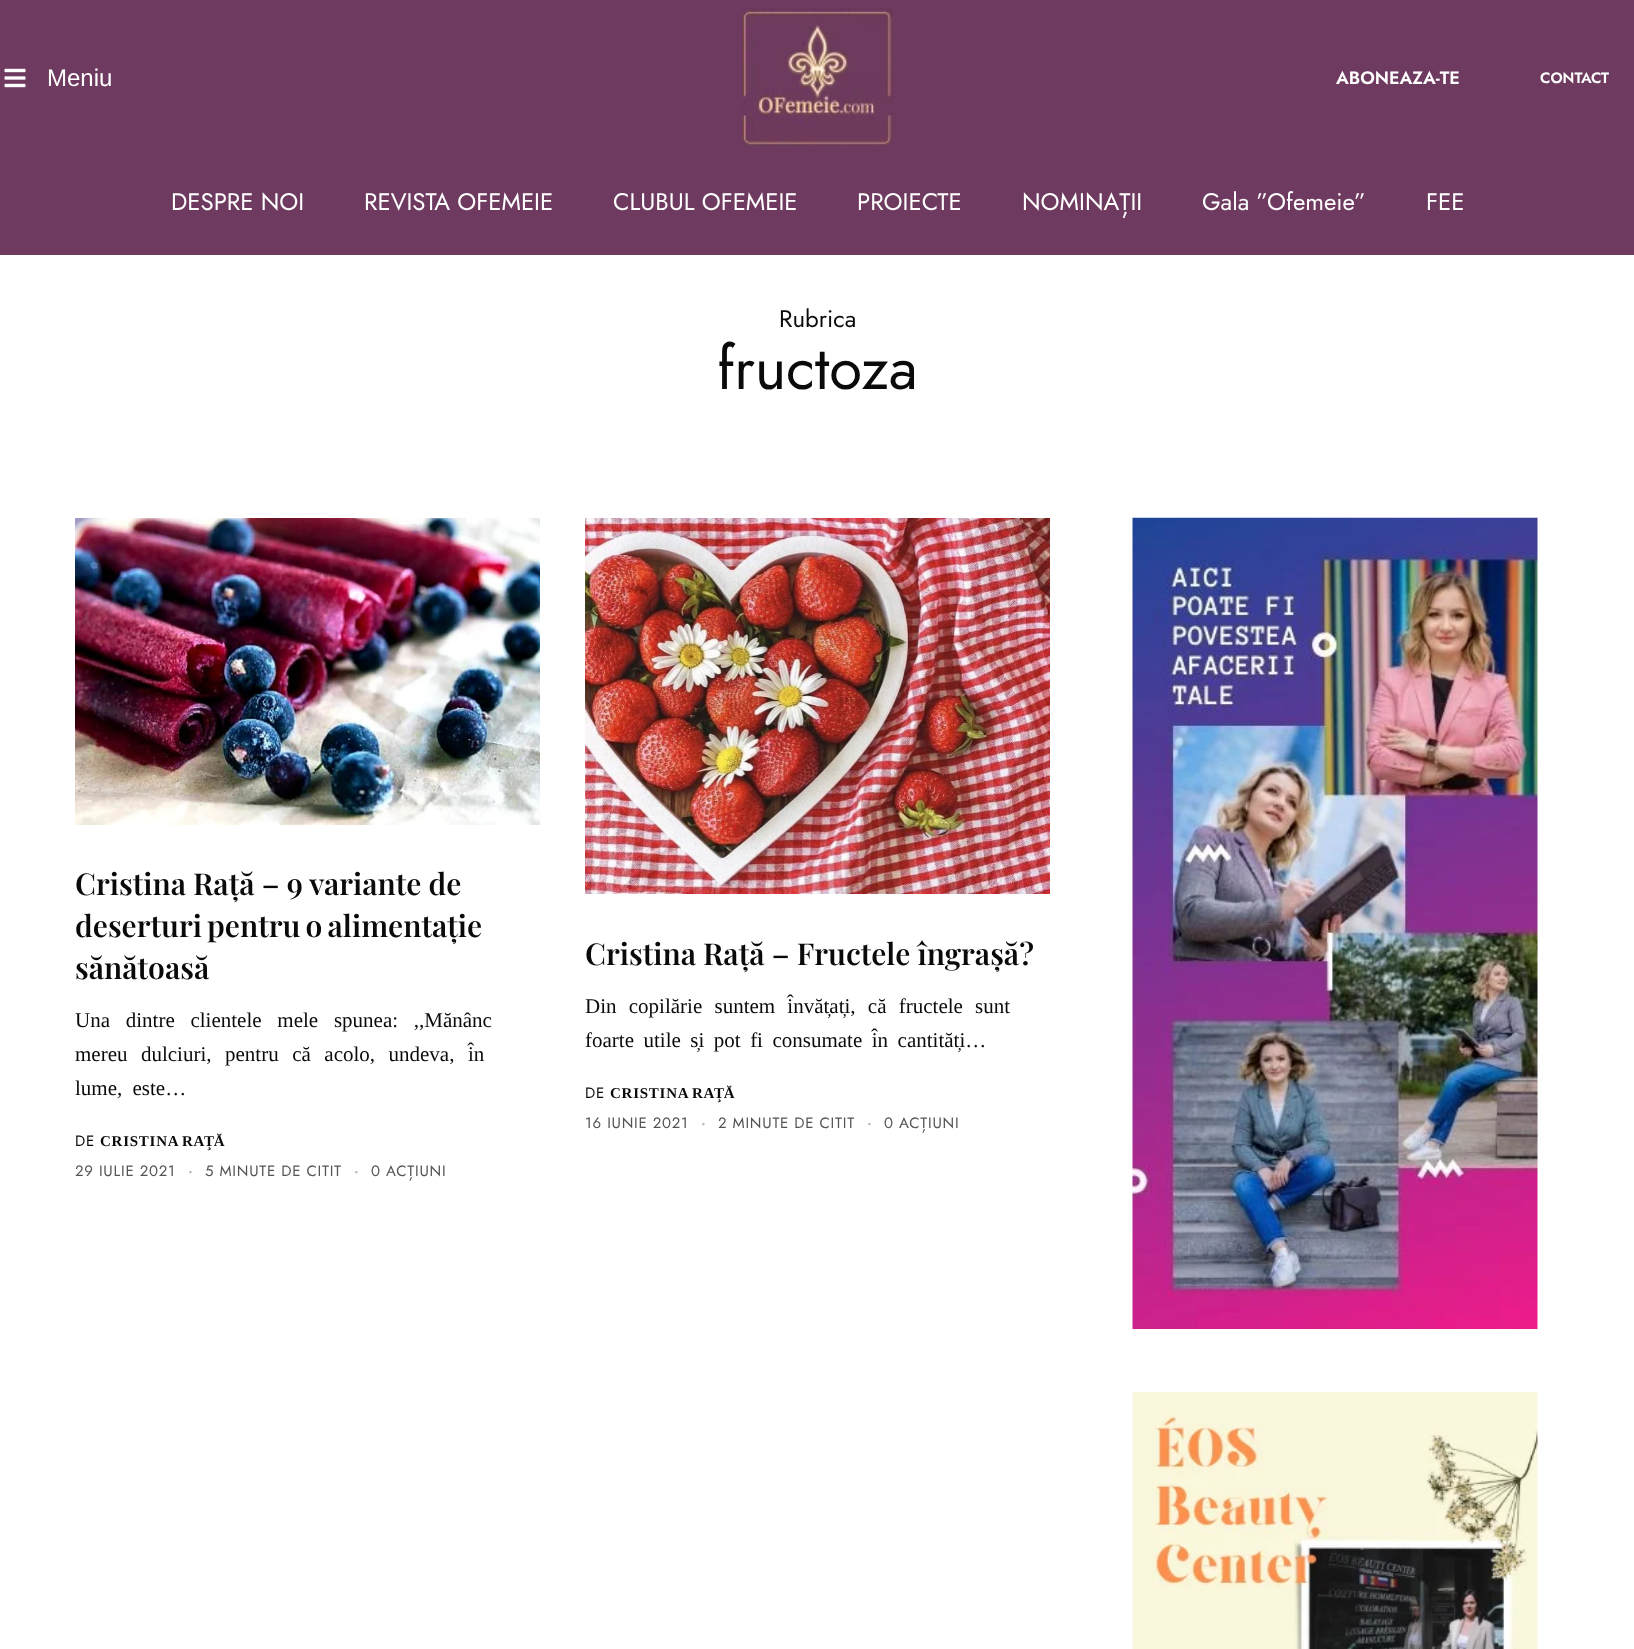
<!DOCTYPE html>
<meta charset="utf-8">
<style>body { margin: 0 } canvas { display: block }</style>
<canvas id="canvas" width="1634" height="1649"></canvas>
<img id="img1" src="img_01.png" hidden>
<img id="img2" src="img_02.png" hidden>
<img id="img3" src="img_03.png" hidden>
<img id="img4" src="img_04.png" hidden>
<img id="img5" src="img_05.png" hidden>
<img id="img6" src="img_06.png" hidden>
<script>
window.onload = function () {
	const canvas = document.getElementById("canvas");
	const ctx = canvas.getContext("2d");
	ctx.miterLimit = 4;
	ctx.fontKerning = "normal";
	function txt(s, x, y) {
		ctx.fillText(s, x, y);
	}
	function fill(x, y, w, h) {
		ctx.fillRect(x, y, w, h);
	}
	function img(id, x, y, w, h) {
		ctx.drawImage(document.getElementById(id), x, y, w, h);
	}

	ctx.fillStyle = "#FFFFFF";
	fill(0, 0, 1634, 1649);
	ctx.fillStyle = "#6E3A5F";
	fill(0, 0, 1634, 255);
	img("img1", 4, 68, 22, 20);
	img("img2", 742, 8, 151, 139);
	img("img3", 75, 518, 465, 307);
	img("img4", 585, 518, 465, 376);
	img("img5", 1132, 517, 406, 812);
	img("img6", 1132, 1392, 406, 257);
	ctx.font = "24px Liberation Sans";
	ctx.fillStyle = "#FFFFFF";
	txt("Meniu", 47, 86);
	ctx.font = "600 18px Jost";
	txt("ABONEAZA-TE", 1336, 84);
	ctx.font = "600 15px Jost";
	txt("CONTACT", 1540, 83);
	ctx.font = "24px Jost";
	txt("DESPRE NOI", 171, 210);
	txt("REVISTA OFEMEIE", 364, 210);
	txt("CLUBUL OFEMEIE", 613, 210);
	txt("PROIECTE", 857, 210);
	txt("NOMINAȚII", 1022, 210);
	txt("Gala ”Ofemeie”", 1202, 210);
	txt("FEE", 1426, 210);
	ctx.fillStyle = "#0A0A0A";
	txt("Rubrica", 779, 327);
	ctx.font = "60px Jost";
	txt("fructoza", 717, 389);
	ctx.font = "600 30px Playfair Display";
	txt("Cristina Rață – 9 variante de", 75, 895);
	ctx.wordSpacing = "-2px";
	txt("deserturi pentru o alimentație", 75, 937);
	ctx.wordSpacing = "0px";
	txt("sănătoasă", 75, 979);
	ctx.wordSpacing = "10.5px";
	ctx.font = "21px Liberation Serif";
	txt("Una dintre clientele mele spunea: ,,Mănânc", 75, 1027);
	ctx.wordSpacing = "8.25px";
	txt("mereu dulciuri, pentru că acolo, undeva, în", 75, 1061);
	ctx.wordSpacing = "5px";
	txt("lume, este…", 75, 1095);
	ctx.letterSpacing = "0.75px";
	ctx.wordSpacing = "0px";
	ctx.font = "15px Jost";
	txt("DE", 75, 1146);
	ctx.wordSpacing = "-1px";
	ctx.font = "bold 15px Liberation Serif";
	txt("CRISTINA RAŢĂ", 100, 1146);
	ctx.wordSpacing = "0px";
	ctx.font = "15px Jost";
	ctx.fillStyle = "#545454";
	txt("29 IULIE 2021", 75, 1176);
	ctx.font = "600 15px Jost";
	ctx.fillStyle = "#B5B5B5";
	txt("·", 188, 1176);
	ctx.font = "15px Jost";
	ctx.fillStyle = "#545454";
	txt("5 MINUTE DE CITIT", 205, 1176);
	ctx.font = "600 15px Jost";
	ctx.fillStyle = "#B5B5B5";
	txt("·", 354, 1176);
	ctx.font = "15px Jost";
	ctx.fillStyle = "#545454";
	txt("0 ACȚIUNI", 371, 1176);
	ctx.letterSpacing = "0px";
	ctx.font = "600 30px Playfair Display";
	ctx.fillStyle = "#0A0A0A";
	txt("Cristina Rață – Fructele îngrașă?", 585, 965);
	ctx.wordSpacing = "7px";
	ctx.font = "21px Liberation Serif";
	txt("Din copilărie suntem învățați, că fructele sunt", 585, 1013);
	ctx.wordSpacing = "4.25px";
	txt("foarte utile și pot fi consumate în cantități…", 585, 1047);
	ctx.letterSpacing = "0.75px";
	ctx.wordSpacing = "0px";
	ctx.font = "15px Jost";
	txt("DE", 585, 1098);
	ctx.wordSpacing = "-1px";
	ctx.font = "bold 15px Liberation Serif";
	txt("CRISTINA RAŢĂ", 610, 1098);
	ctx.wordSpacing = "0px";
	ctx.font = "15px Jost";
	ctx.fillStyle = "#545454";
	txt("16 IUNIE 2021", 585, 1128);
	ctx.font = "600 15px Jost";
	ctx.fillStyle = "#B5B5B5";
	txt("·", 701, 1128);
	ctx.font = "15px Jost";
	ctx.fillStyle = "#545454";
	txt("2 MINUTE DE CITIT", 718, 1128);
	ctx.font = "600 15px Jost";
	ctx.fillStyle = "#B5B5B5";
	txt("·", 867, 1128);
	ctx.font = "15px Jost";
	ctx.fillStyle = "#545454";
	txt("0 ACȚIUNI", 884, 1128);
};
</script>
